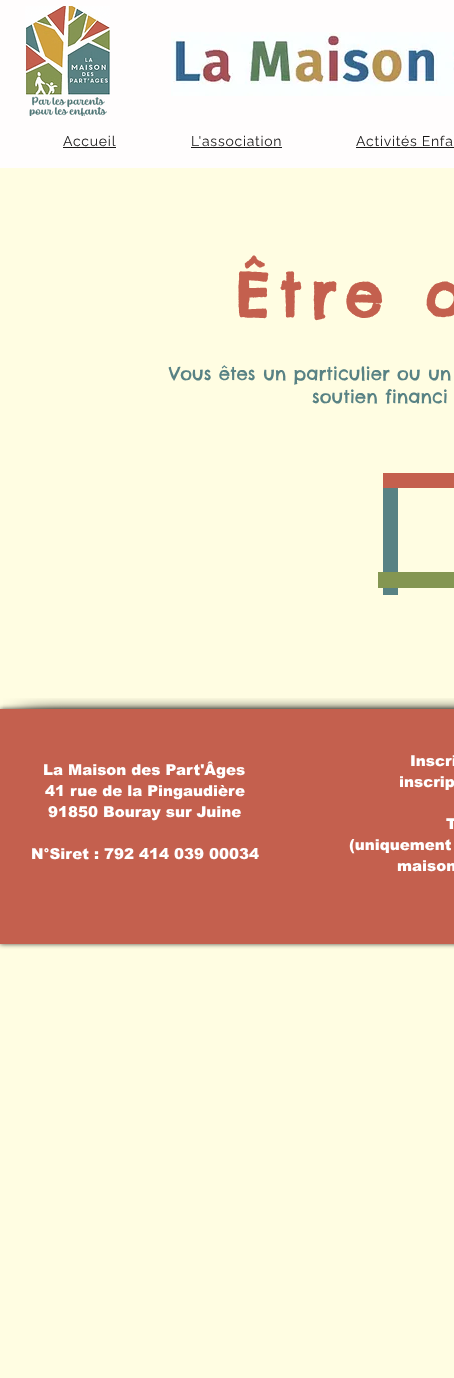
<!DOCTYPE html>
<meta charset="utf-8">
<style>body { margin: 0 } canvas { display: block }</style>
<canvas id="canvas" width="454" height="1378"></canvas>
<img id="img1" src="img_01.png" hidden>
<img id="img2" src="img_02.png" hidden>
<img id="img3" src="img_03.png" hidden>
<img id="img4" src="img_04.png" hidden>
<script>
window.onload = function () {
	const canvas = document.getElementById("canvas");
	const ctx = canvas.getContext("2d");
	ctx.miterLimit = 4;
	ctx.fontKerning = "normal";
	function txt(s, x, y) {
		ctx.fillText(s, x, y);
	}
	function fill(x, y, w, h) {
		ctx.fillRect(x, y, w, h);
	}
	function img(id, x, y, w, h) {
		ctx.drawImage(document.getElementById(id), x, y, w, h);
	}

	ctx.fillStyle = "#FFFDE2";
	fill(0, 0, 454, 1378);
	ctx.fillStyle = "#FFFDFD";
	fill(0, 0, 454, 168);
	img("img1", 25, 6, 85, 110);
	img("img2", 171, 32, 283, 64);
	ctx.fillStyle = "#191818";
	fill(63, 147, 53, 1);
	fill(191, 147, 91, 1);
	fill(356, 147, 98, 1);
	ctx.fillStyle = "#C4604E";
	fill(383, 473, 71, 15);
	ctx.fillStyle = "#588284";
	fill(383, 488, 15, 107);
	ctx.fillStyle = "#849652";
	fill(378, 572, 76, 16);
	ctx.fillStyle = "rgba(0, 0, 0, 0.7)";
	ctx.filter = "blur(2.5px)";
	ctx.beginPath();
	ctx.rect(0, 709, 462, 235);
	ctx.fill();
	ctx.filter = "none";
	ctx.fillStyle = "#C4604E";
	fill(0, 709, 454, 235);
	img("img3", 3, 698, 97, 11);
	img("img4", 100, 698, 354, 11);
	ctx.letterSpacing = "0.75px";
	ctx.font = "14px Raleway";
	ctx.fillStyle = "#191818";
	txt("Accueil", 63, 146);
	txt("L'association", 191, 146);
	txt("Activités Enfa", 356, 146);
	ctx.letterSpacing = "9px";
	ctx.font = "bold 60px Chelsea Market";
	ctx.fillStyle = "#C4604E";
	txt("Être d", 235, 317);
	ctx.letterSpacing = "0px";
	ctx.font = "18px Chelsea Market";
	ctx.fillStyle = "#588284";
	txt("Vous êtes un particulier ou un", 169, 380);
	txt("soutien financi", 312, 403);
	ctx.font = "900 15px arial";
	ctx.fillStyle = "#FFFFFF";
	txt("La Maison des Part'Âges", 43, 775);
	txt("41 rue de la Pingaudière", 45, 796);
	txt("91850 Bouray sur Juine", 48, 817);
	txt("N°Siret : 792 414 039 00034", 31, 859);
	txt("Inscri", 410, 766);
	txt("inscrip", 399, 787);
	txt("T", 446, 829);
	txt("(uniquement", 349, 850);
	txt("maison", 397, 871);
};
</script>
